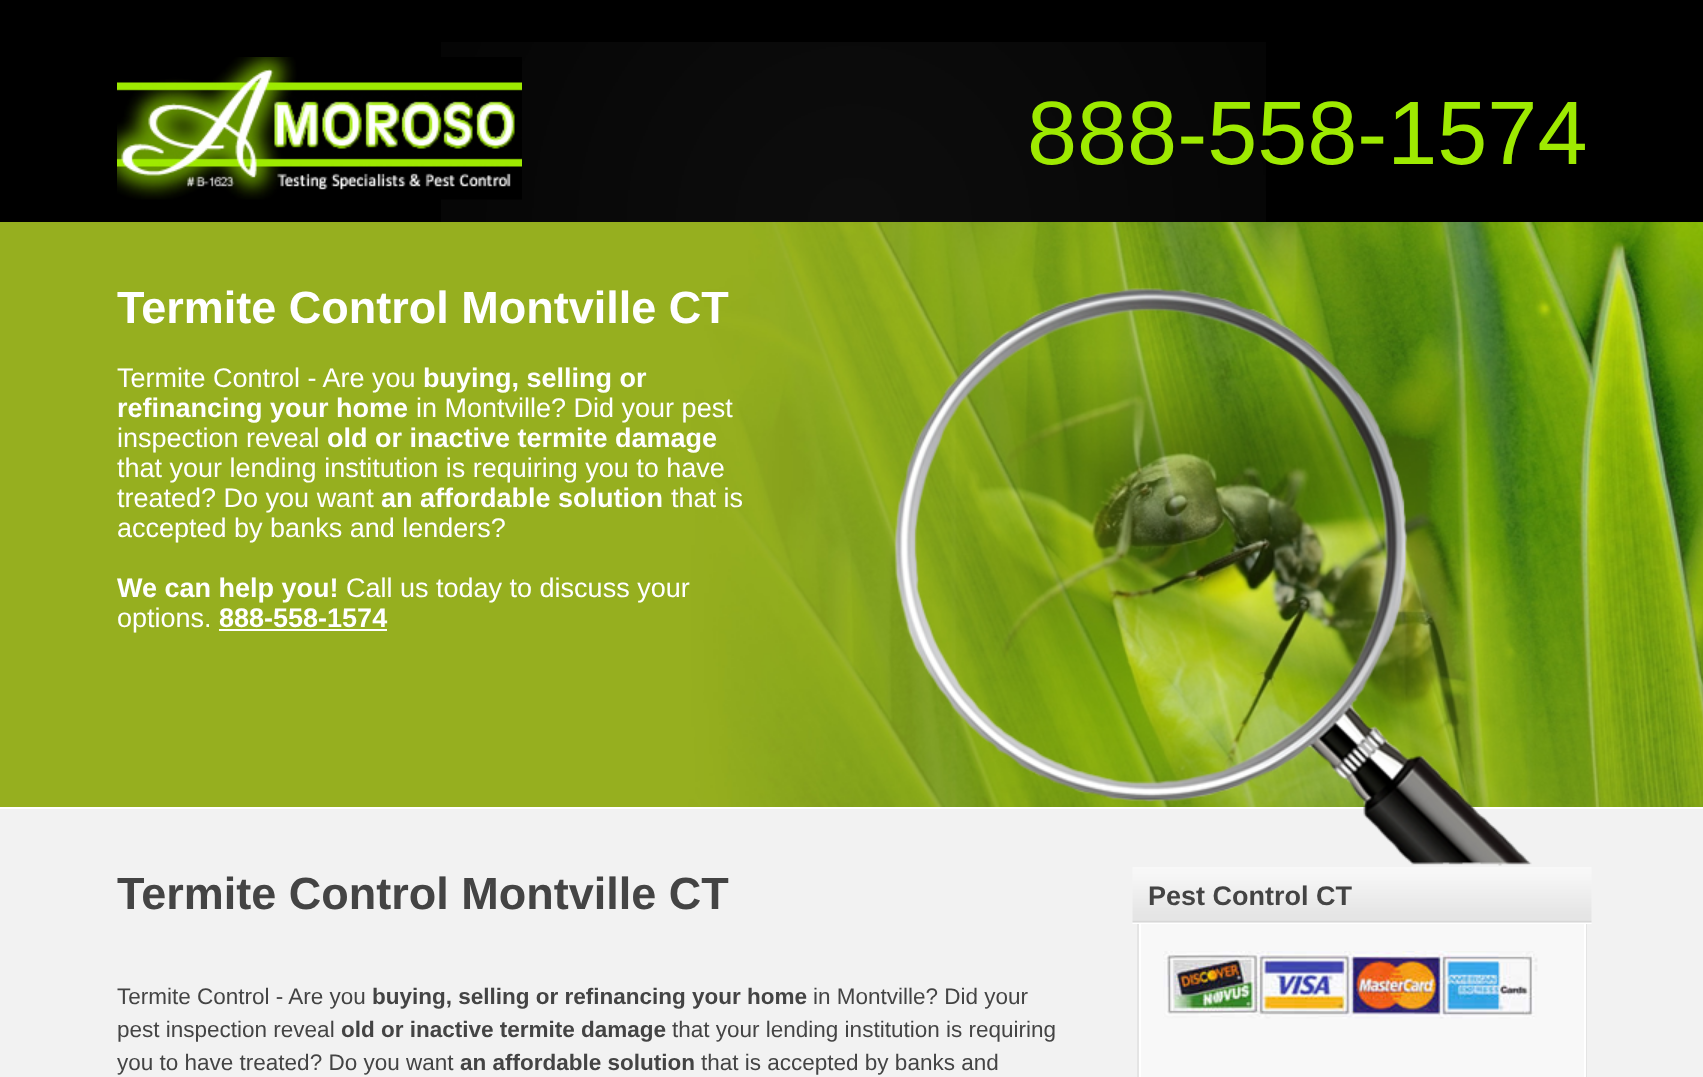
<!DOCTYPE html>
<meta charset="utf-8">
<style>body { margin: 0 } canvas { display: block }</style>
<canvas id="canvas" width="1703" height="1077"></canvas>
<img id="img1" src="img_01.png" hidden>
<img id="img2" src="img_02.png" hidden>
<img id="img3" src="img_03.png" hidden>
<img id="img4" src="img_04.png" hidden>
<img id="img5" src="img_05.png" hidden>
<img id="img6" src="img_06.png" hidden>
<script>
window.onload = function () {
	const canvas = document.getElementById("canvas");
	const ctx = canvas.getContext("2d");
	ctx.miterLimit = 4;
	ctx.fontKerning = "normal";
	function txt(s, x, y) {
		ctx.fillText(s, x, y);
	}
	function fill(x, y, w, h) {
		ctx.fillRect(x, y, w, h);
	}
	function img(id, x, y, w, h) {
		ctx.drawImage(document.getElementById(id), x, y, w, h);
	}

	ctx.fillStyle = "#000000";
	fill(0, 0, 1703, 1077);
	img("img1", 441, 42, 825, 180);
	img("img2", 117, 57, 405, 143);
	img("img3", 0, 222, 1703, 585);
	ctx.fillStyle = "#FFFFFF";
	fill(219, 629, 168, 2);
	ctx.fillStyle = "#F2F2F2";
	fill(0, 809, 1703, 268);
	ctx.fillStyle = "#FFFFFF";
	fill(0, 807, 1703, 2);
	img("img4", 894, 287, 638, 579);
	ctx.strokeStyle = "#E4E4E4";
	ctx.lineWidth = 2;
	ctx.strokeRect(1138, 870, 448, 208);
	ctx.fillStyle = "#F8F8F8";
	fill(1141, 924, 443, 153);
	ctx.strokeStyle = "#FFFFFF";
	ctx.strokeRect(1140, 871, 445, 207);
	img("img5", 1132, 867, 460, 57);
	img("img6", 1163, 951, 375, 68);
	ctx.font = "90px Liberation Sans";
	ctx.fillStyle = "#9EEA01";
	txt("888-558-1574", 1027, 164);
	ctx.font = "bold 45px Liberation Sans";
	ctx.fillStyle = "#FFFFFF";
	txt("Termite Control Montville CT", 117, 323);
	ctx.font = "27px Liberation Sans";
	txt("Termite Control - Are you", 117, 387);
	ctx.font = "bold 27px Liberation Sans";
	txt("buying, selling or", 423, 387);
	txt("refinancing your home", 117, 417);
	ctx.font = "27px Liberation Sans";
	txt("in Montville? Did your pest", 416, 417);
	txt("inspection reveal", 117, 447);
	ctx.font = "bold 27px Liberation Sans";
	txt("old or inactive termite damage", 327, 447);
	ctx.font = "27px Liberation Sans";
	txt("that your lending institution is requiring you to have", 117, 477);
	txt("treated? Do you want", 117, 507);
	ctx.font = "bold 27px Liberation Sans";
	txt("an affordable solution", 381, 507);
	ctx.font = "27px Liberation Sans";
	txt("that is", 671, 507);
	txt("accepted by banks and lenders?", 117, 537);
	ctx.font = "bold 27px Liberation Sans";
	txt("We can help you!", 117, 597);
	ctx.font = "27px Liberation Sans";
	txt("Call us today to discuss your", 346, 597);
	txt("options.", 117, 627);
	ctx.font = "bold 27px Liberation Sans";
	txt("888-558-1574", 219, 627);
	ctx.font = "bold 45px Liberation Sans";
	ctx.fillStyle = "#444444";
	txt("Termite Control Montville CT", 117, 909);
	ctx.font = "22.5px Liberation Sans";
	txt("Termite Control - Are you", 117, 1004);
	ctx.font = "bold 22.5px Liberation Sans";
	txt("buying, selling or refinancing your home", 372, 1004);
	ctx.font = "22.5px Liberation Sans";
	txt("in Montville? Did your", 813, 1004);
	txt("pest inspection reveal", 117, 1037);
	ctx.font = "bold 22.5px Liberation Sans";
	txt("old or inactive termite damage", 341, 1037);
	ctx.font = "22.5px Liberation Sans";
	txt("that your lending institution is requiring", 672, 1037);
	txt("you to have treated? Do you want", 117, 1070);
	ctx.font = "bold 22.5px Liberation Sans";
	txt("an affordable solution", 460, 1070);
	ctx.font = "22.5px Liberation Sans";
	txt("that is accepted by banks and", 701, 1070);
	ctx.font = "bold 27px Liberation Sans";
	txt("Pest Control CT", 1148, 905);
};
</script>
